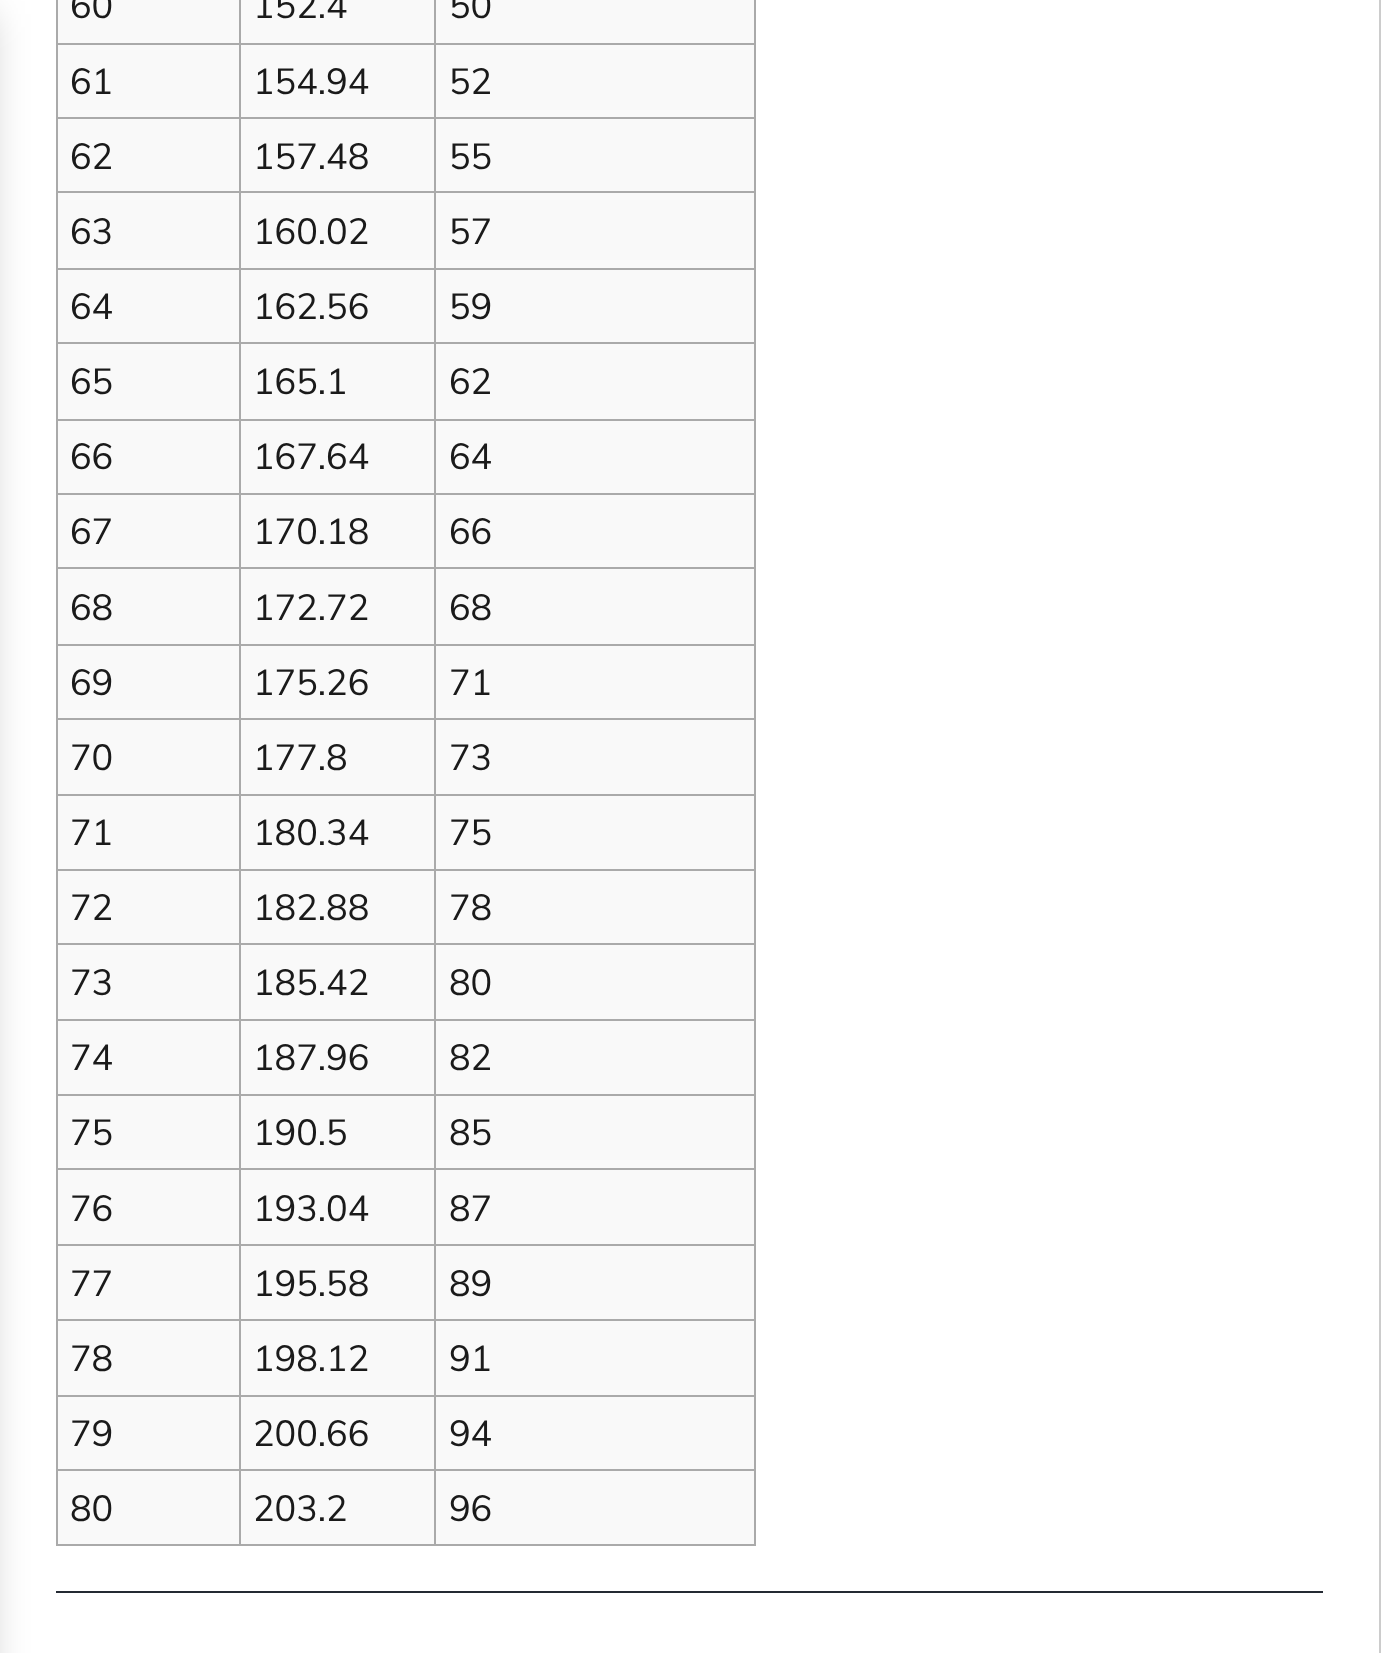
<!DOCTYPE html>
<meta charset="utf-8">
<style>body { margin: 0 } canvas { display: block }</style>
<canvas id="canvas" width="1381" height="1653"></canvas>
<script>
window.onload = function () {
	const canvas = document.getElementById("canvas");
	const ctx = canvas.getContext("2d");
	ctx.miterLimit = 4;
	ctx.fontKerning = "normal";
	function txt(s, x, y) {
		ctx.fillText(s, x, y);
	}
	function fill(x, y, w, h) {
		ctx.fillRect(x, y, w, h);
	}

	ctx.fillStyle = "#FFFFFF";
	fill(0, 0, 1381, 1653);
	ctx.fillStyle = "rgba(0, 0, 0, 0.2)";
	ctx.filter = "blur(19px)";
	ctx.beginPath();
	ctx.rect(-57, 14, 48, 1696);
	ctx.fill();
	ctx.filter = "none";
	ctx.fillStyle = "#CCCCCC";
	fill(1379, 0, 2, 1653);
	ctx.fillStyle = "#F9F9F9";
	fill(58, 0, 696, 1544);
	ctx.fillStyle = "#AAAAAA";
	fill(754, 0, 2, 1546);
	fill(56, 1544, 700, 2);
	fill(56, 0, 2, 1546);
	fill(434, 43, 322, 2);
	fill(434, 117, 322, 2);
	fill(434, 191, 322, 2);
	fill(434, 268, 322, 2);
	fill(434, 342, 322, 2);
	fill(434, 419, 322, 2);
	fill(434, 493, 322, 2);
	fill(434, 567, 322, 2);
	fill(434, 644, 322, 2);
	fill(434, 718, 322, 2);
	fill(434, 794, 322, 2);
	fill(434, 869, 322, 2);
	fill(434, 943, 322, 2);
	fill(434, 1019, 322, 2);
	fill(434, 1094, 322, 2);
	fill(434, 1168, 322, 2);
	fill(434, 1244, 322, 2);
	fill(434, 1319, 322, 2);
	fill(434, 1395, 322, 2);
	fill(434, 1469, 322, 2);
	fill(434, 1469, 2, 77);
	fill(239, 1469, 198, 2);
	fill(434, 1395, 2, 77);
	fill(239, 1395, 198, 2);
	fill(434, 1319, 2, 78);
	fill(239, 1319, 198, 2);
	fill(434, 1244, 2, 77);
	fill(239, 1244, 198, 2);
	fill(434, 1168, 2, 79);
	fill(239, 1168, 198, 2);
	fill(434, 1094, 2, 76);
	fill(239, 1094, 198, 2);
	fill(434, 1019, 2, 77);
	fill(239, 1019, 198, 2);
	fill(434, 943, 2, 79);
	fill(239, 943, 198, 2);
	fill(434, 869, 2, 76);
	fill(239, 869, 198, 2);
	fill(434, 794, 2, 77);
	fill(239, 794, 198, 2);
	fill(434, 718, 2, 79);
	fill(239, 718, 198, 2);
	fill(434, 644, 2, 76);
	fill(239, 644, 198, 2);
	fill(434, 567, 2, 79);
	fill(239, 567, 198, 2);
	fill(434, 493, 2, 76);
	fill(239, 493, 198, 2);
	fill(434, 419, 2, 76);
	fill(239, 419, 198, 2);
	fill(434, 342, 2, 79);
	fill(239, 342, 198, 2);
	fill(434, 268, 2, 76);
	fill(239, 268, 198, 2);
	fill(434, 191, 2, 79);
	fill(239, 191, 198, 2);
	fill(434, 117, 2, 77);
	fill(239, 117, 198, 2);
	fill(434, 43, 2, 76);
	fill(239, 43, 198, 2);
	fill(239, 1469, 2, 77);
	fill(56, 1469, 185, 2);
	fill(239, 1395, 2, 77);
	fill(56, 1395, 185, 2);
	fill(239, 1319, 2, 78);
	fill(56, 1319, 185, 2);
	fill(239, 1244, 2, 77);
	fill(56, 1244, 185, 2);
	fill(239, 1168, 2, 79);
	fill(56, 1168, 185, 2);
	fill(239, 1094, 2, 76);
	fill(56, 1094, 185, 2);
	fill(239, 1019, 2, 77);
	fill(56, 1019, 185, 2);
	fill(239, 943, 2, 79);
	fill(56, 943, 185, 2);
	fill(239, 869, 2, 76);
	fill(56, 869, 185, 2);
	fill(239, 794, 2, 77);
	fill(56, 794, 185, 2);
	fill(239, 718, 2, 79);
	fill(56, 718, 185, 2);
	fill(239, 644, 2, 76);
	fill(56, 644, 185, 2);
	fill(239, 567, 2, 79);
	fill(56, 567, 185, 2);
	fill(239, 493, 2, 76);
	fill(56, 493, 185, 2);
	fill(239, 419, 2, 76);
	fill(56, 419, 185, 2);
	fill(239, 342, 2, 79);
	fill(56, 342, 185, 2);
	fill(239, 268, 2, 76);
	fill(56, 268, 185, 2);
	fill(239, 191, 2, 79);
	fill(56, 191, 185, 2);
	fill(239, 117, 2, 77);
	fill(56, 117, 185, 2);
	fill(239, 43, 2, 76);
	fill(56, 43, 185, 2);
	fill(239, 0, 2, 45);
	fill(434, 0, 2, 45);
	ctx.fillStyle = "#242A33";
	fill(56, 1591, 1267, 2);
	ctx.font = "36px Muli";
	ctx.fillStyle = "#1A1A1A";
	txt("60", 70, 18);
	txt("152.4", 253, 18);
	txt("50", 449, 18);
	txt("61", 70, 94);
	txt("154.94", 253, 94);
	txt("52", 449, 94);
	txt("62", 70, 169);
	txt("157.48", 253, 169);
	txt("55", 449, 169);
	txt("63", 70, 244);
	txt("160.02", 253, 244);
	txt("57", 449, 244);
	txt("64", 70, 319);
	txt("162.56", 253, 319);
	txt("59", 449, 319);
	txt("65", 70, 394);
	txt("165.1", 253, 394);
	txt("62", 449, 394);
	txt("66", 70, 469);
	txt("167.64", 253, 469);
	txt("64", 449, 469);
	txt("67", 70, 544);
	txt("170.18", 253, 544);
	txt("66", 449, 544);
	txt("68", 70, 620);
	txt("172.72", 253, 620);
	txt("68", 449, 620);
	txt("69", 70, 695);
	txt("175.26", 253, 695);
	txt("71", 449, 695);
	txt("70", 70, 770);
	txt("177.8", 253, 770);
	txt("73", 449, 770);
	txt("71", 70, 845);
	txt("180.34", 253, 845);
	txt("75", 449, 845);
	txt("72", 70, 920);
	txt("182.88", 253, 920);
	txt("78", 449, 920);
	txt("73", 70, 995);
	txt("185.42", 253, 995);
	txt("80", 449, 995);
	txt("74", 70, 1070);
	txt("187.96", 253, 1070);
	txt("82", 449, 1070);
	txt("75", 70, 1145);
	txt("190.5", 253, 1145);
	txt("85", 449, 1145);
	txt("76", 70, 1221);
	txt("193.04", 253, 1221);
	txt("87", 449, 1221);
	txt("77", 70, 1296);
	txt("195.58", 253, 1296);
	txt("89", 449, 1296);
	txt("78", 70, 1371);
	txt("198.12", 253, 1371);
	txt("91", 449, 1371);
	txt("79", 70, 1446);
	txt("200.66", 253, 1446);
	txt("94", 449, 1446);
	txt("80", 70, 1521);
	txt("203.2", 253, 1521);
	txt("96", 449, 1521);
};
</script>
